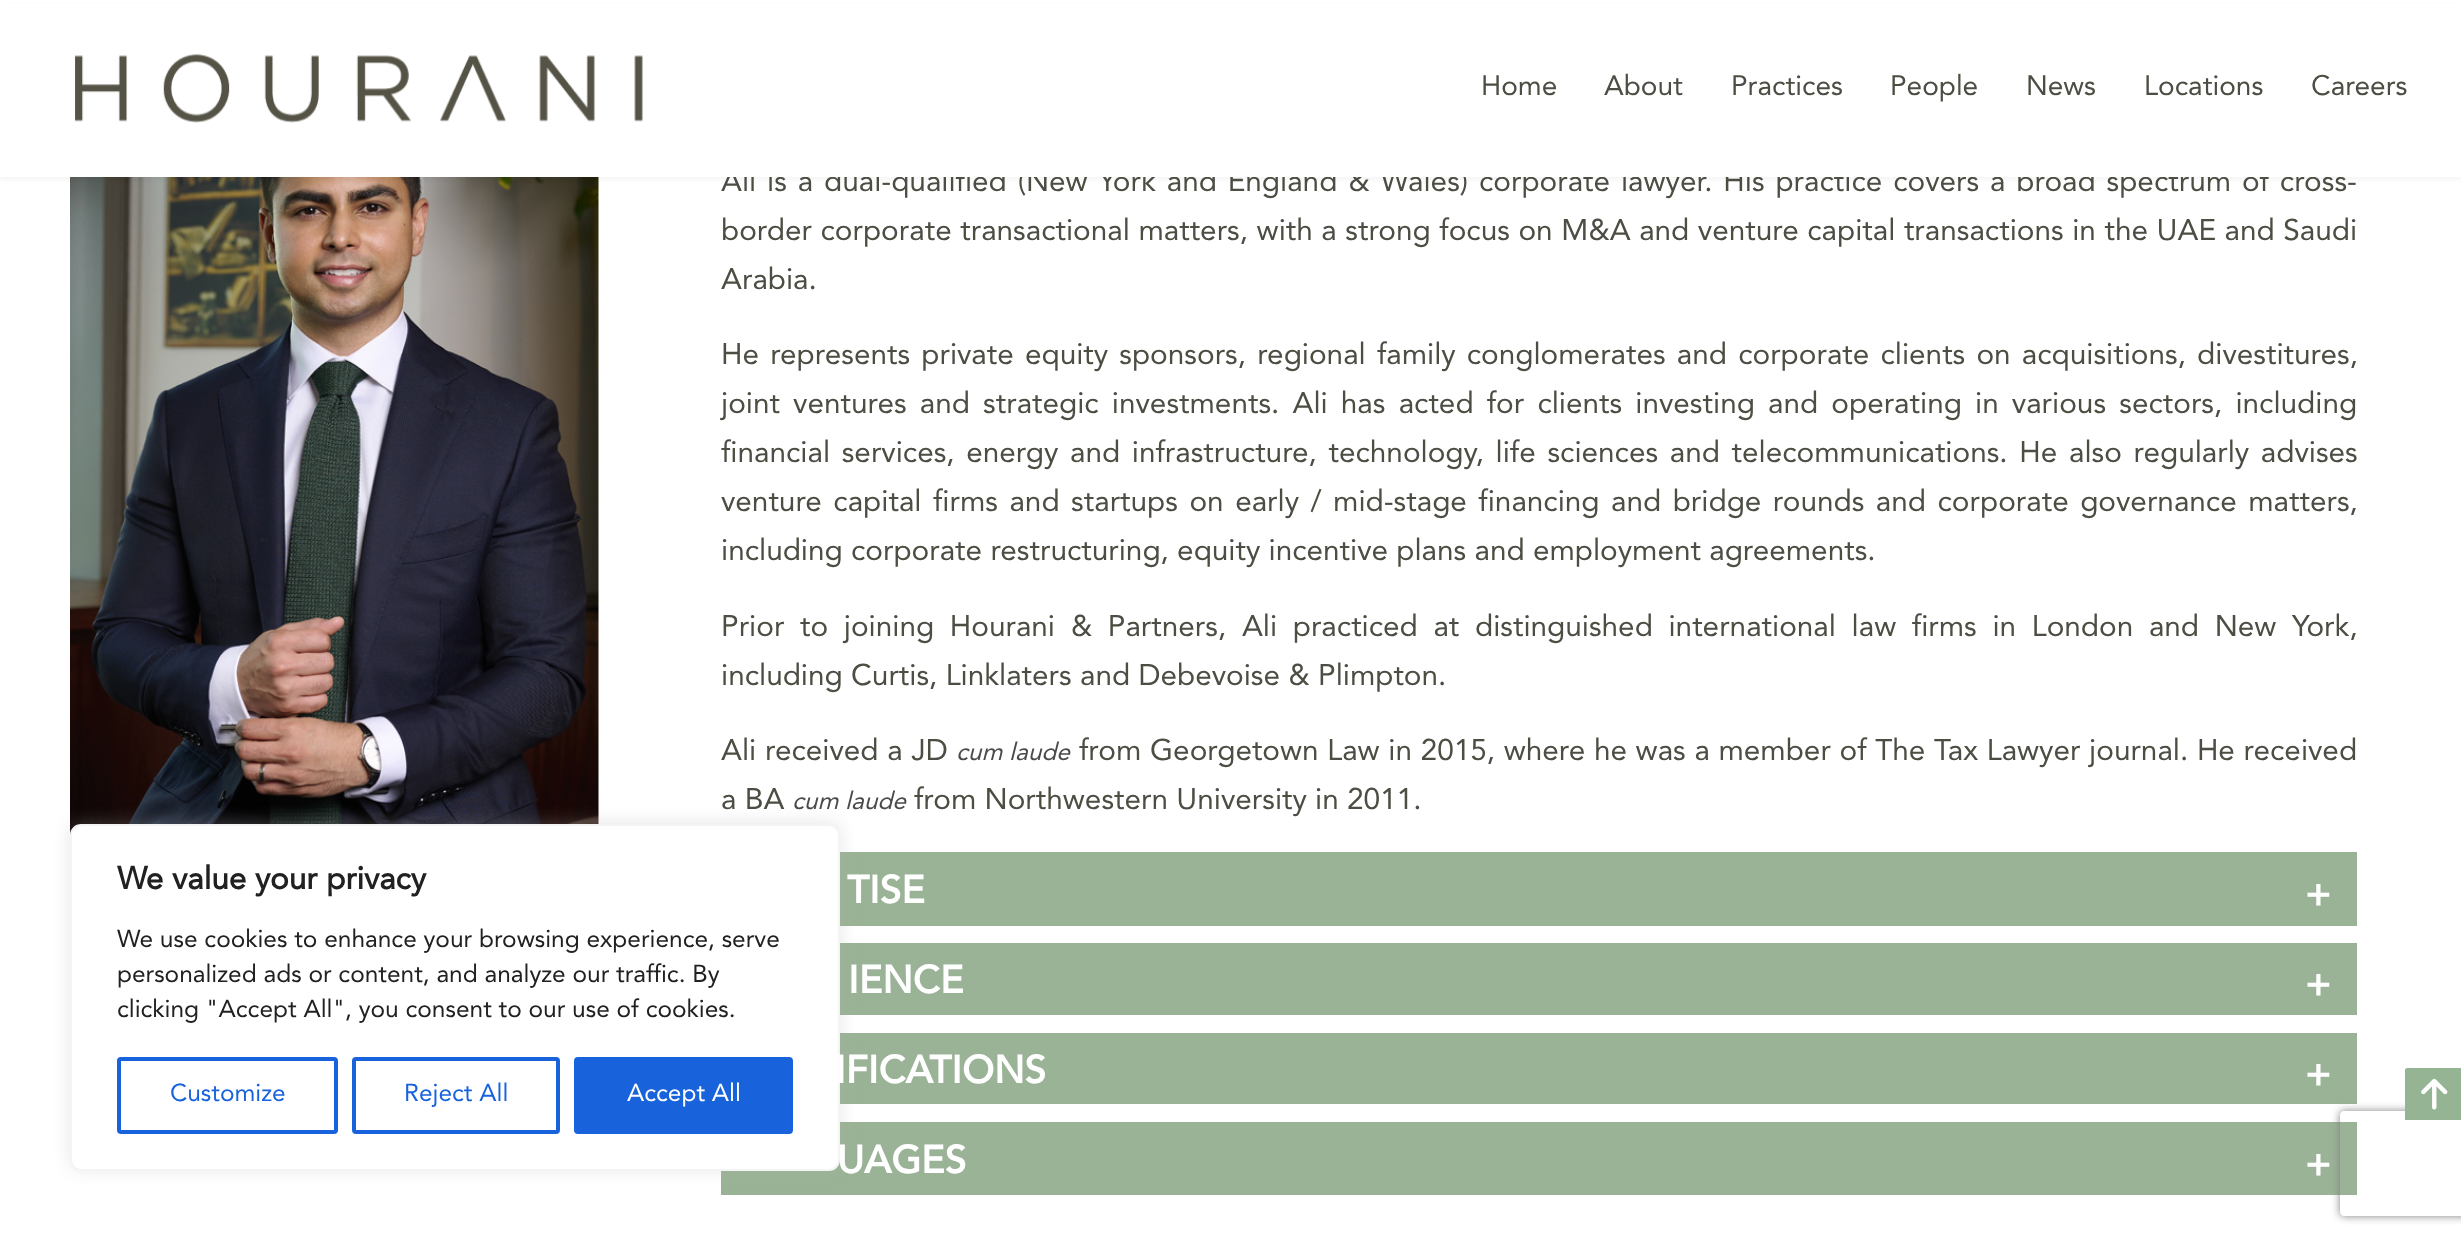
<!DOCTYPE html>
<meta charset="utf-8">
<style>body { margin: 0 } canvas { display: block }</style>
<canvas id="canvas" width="2461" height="1240"></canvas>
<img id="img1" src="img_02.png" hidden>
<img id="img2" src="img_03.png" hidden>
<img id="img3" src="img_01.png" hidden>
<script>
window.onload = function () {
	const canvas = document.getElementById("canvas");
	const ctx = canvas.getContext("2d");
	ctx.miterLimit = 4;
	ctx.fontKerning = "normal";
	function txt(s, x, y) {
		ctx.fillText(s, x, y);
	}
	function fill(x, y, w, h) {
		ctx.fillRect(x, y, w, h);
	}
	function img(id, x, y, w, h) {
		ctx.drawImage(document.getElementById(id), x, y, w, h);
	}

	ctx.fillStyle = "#FFFFFF";
	fill(0, 0, 2461, 1240);
	img("img1", 70, 177, 529, 658);
	ctx.fillStyle = "#9AB396";
	fill(840, 852, 1517, 74);
	fill(840, 943, 1517, 72);
	fill(840, 1033, 1517, 71);
	fill(721, 1122, 1636, 73);
	ctx.fillStyle = "rgba(172, 171, 171, 0.3)";
	ctx.filter = "blur(9px)";
	ctx.beginPath();
	ctx.roundRect(70, 823, 770, 346, 11);
	ctx.fill();
	ctx.filter = "none";
	ctx.fillStyle = "#FFFFFF";
	ctx.beginPath();
	ctx.roundRect(71, 825, 768, 345, 10);
	ctx.fill();
	ctx.strokeStyle = "#F4F4F4";
	ctx.lineWidth = 2;
	ctx.stroke();
	ctx.beginPath();
	ctx.roundRect(119, 1059, 217, 73, 2);
	ctx.strokeStyle = "#1863DC";
	ctx.lineWidth = 4;
	ctx.stroke();
	ctx.beginPath();
	ctx.roundRect(354, 1059, 204, 73, 2);
	ctx.stroke();
	ctx.fillStyle = "#1863DC";
	ctx.beginPath();
	ctx.roundRect(576, 1059, 215, 73, 2);
	ctx.fill();
	ctx.stroke();
	ctx.fillStyle = "rgba(0, 0, 0, 0.04)";
	ctx.filter = "blur(2px)";
	ctx.beginPath();
	ctx.rect(0, 4, 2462, 176);
	ctx.fill();
	ctx.filter = "none";
	ctx.save();
	ctx.beginPath();
	ctx.moveTo(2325, 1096);
	ctx.lineTo(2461, 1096);
	ctx.lineTo(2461, 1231);
	ctx.lineTo(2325, 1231);
	ctx.closePath();
	ctx.moveTo(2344, 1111);
	ctx.lineTo(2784, 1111);
	ctx.bezierCurveTo(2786, 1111, 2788, 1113, 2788, 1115);
	ctx.lineTo(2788, 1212);
	ctx.bezierCurveTo(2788, 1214, 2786, 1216, 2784, 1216);
	ctx.lineTo(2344, 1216);
	ctx.bezierCurveTo(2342, 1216, 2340, 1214, 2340, 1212);
	ctx.lineTo(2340, 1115);
	ctx.bezierCurveTo(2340, 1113, 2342, 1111, 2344, 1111);
	ctx.closePath();
	ctx.clip("evenodd");
	ctx.fillStyle = "#808080";
	ctx.filter = "blur(4.5px)";
	ctx.beginPath();
	ctx.roundRect(2340, 1111, 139, 105, 4);
	ctx.fill();
	ctx.filter = "none";
	ctx.restore();
	ctx.fillStyle = "#94B493";
	ctx.beginPath();
	ctx.moveTo(2407, 1068);
	ctx.lineTo(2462, 1068);
	ctx.lineTo(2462, 1120);
	ctx.lineTo(2405, 1120);
	ctx.lineTo(2405, 1070);
	ctx.bezierCurveTo(2405, 1069, 2406, 1068, 2407, 1068);
	ctx.closePath();
	ctx.fill();
	img("img2", 2421, 1078, 27, 32);
	ctx.font = "bold 31.5px 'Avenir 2'";
	ctx.fillStyle = "#212121";
	txt("We value your privacy", 117, 889);
	ctx.font = "24.5px Avenir";
	txt("We use cookies to enhance your browsing experience, serve", 117, 947);
	txt("personalized ads or content, and analyze our traffic. By", 117, 982);
	txt("clicking \"Accept All\", you consent to our use of cookies.", 117, 1017);
	ctx.fillStyle = "#1863DC";
	txt("Customize", 170, 1101);
	txt("Reject All", 404, 1101);
	ctx.fillStyle = "#FFFFFF";
	txt("Accept All", 627, 1101);
	ctx.wordSpacing = "2.6px";
	ctx.font = "29.75px Avenir";
	ctx.fillStyle = "#4B4E43";
	txt("Ali is a dual-qualified (New York and England & Wales) corporate lawyer. His practice covers a broad spectrum of cross-", 721, 191);
	ctx.fillStyle = "#FFFFFF";
	fill(0, 3, 2461, 174);
	ctx.wordSpacing = "0px";
	ctx.font = "28px Avenir";
	ctx.fillStyle = "#4B4E43";
	txt("Careers", 2311, 95);
	txt("Locations", 2144, 95);
	txt("News", 2026, 95);
	txt("People", 1890, 95);
	txt("Practices", 1731, 95);
	txt("About", 1604, 95);
	txt("Home", 1481, 95);
	img("img3", 75, 54, 568, 69);
	ctx.wordSpacing = "0.3px";
	ctx.font = "29.75px Avenir";
	txt("border corporate transactional matters, with a strong focus on M&A and venture capital transactions in the UAE and Saudi", 721, 240);
	ctx.wordSpacing = "0px";
	txt("Arabia.", 721, 289);
	ctx.wordSpacing = "2.9px";
	txt("He represents private equity sponsors, regional family conglomerates and corporate clients on acquisitions, divestitures,", 721, 364);
	ctx.wordSpacing = "4.9px";
	txt("joint ventures and strategic investments. Ali has acted for clients investing and operating in various sectors, including", 721, 413);
	ctx.wordSpacing = "3.4px";
	txt("financial services, energy and infrastructure, technology, life sciences and telecommunications. He also regularly advises", 721, 462);
	ctx.wordSpacing = "3.25px";
	txt("venture capital firms and startups on early / mid-stage financing and bridge rounds and corporate governance matters,", 721, 511);
	ctx.wordSpacing = "0px";
	txt("including corporate restructuring, equity incentive plans and employment agreements.", 721, 560);
	ctx.wordSpacing = "7.4px";
	txt("Prior to joining Hourani & Partners, Ali practiced at distinguished international law firms in London and New York,", 721, 636);
	ctx.wordSpacing = "0px";
	txt("including Curtis, Linklaters and Debevoise & Plimpton.", 721, 685);
	ctx.wordSpacing = "0.5px";
	txt("Ali received a JD", 721, 760);
	ctx.wordSpacing = "0px";
	ctx.font = "italic 24.5px Avenir";
	ctx.fillStyle = "#4A4A4A";
	txt("cum laude", 956, 760);
	ctx.wordSpacing = "0.4px";
	ctx.font = "29.75px Avenir";
	ctx.fillStyle = "#4B4E43";
	txt("from Georgetown Law in 2015, where he was a member of The Tax Lawyer journal. He received", 1079, 760);
	ctx.wordSpacing = "0px";
	txt("a BA", 721, 809);
	ctx.font = "italic 24.5px Avenir";
	ctx.fillStyle = "#4A4A4A";
	txt("cum laude", 792, 809);
	ctx.font = "29.75px Avenir";
	ctx.fillStyle = "#4B4E43";
	txt("from Northwestern University in 2011.", 914, 809);
	ctx.font = "bold 38.5px Avenir";
	ctx.fillStyle = "#FFFFFF";
	txt("TISE", 847, 903);
	txt("+", 2305, 907);
	txt("IENCE", 848, 993);
	txt("+", 2305, 997);
	txt("IFICATIONS", 835, 1083);
	txt("+", 2305, 1087);
	txt("UAGES", 837, 1173);
	txt("+", 2305, 1177);
};
</script>
